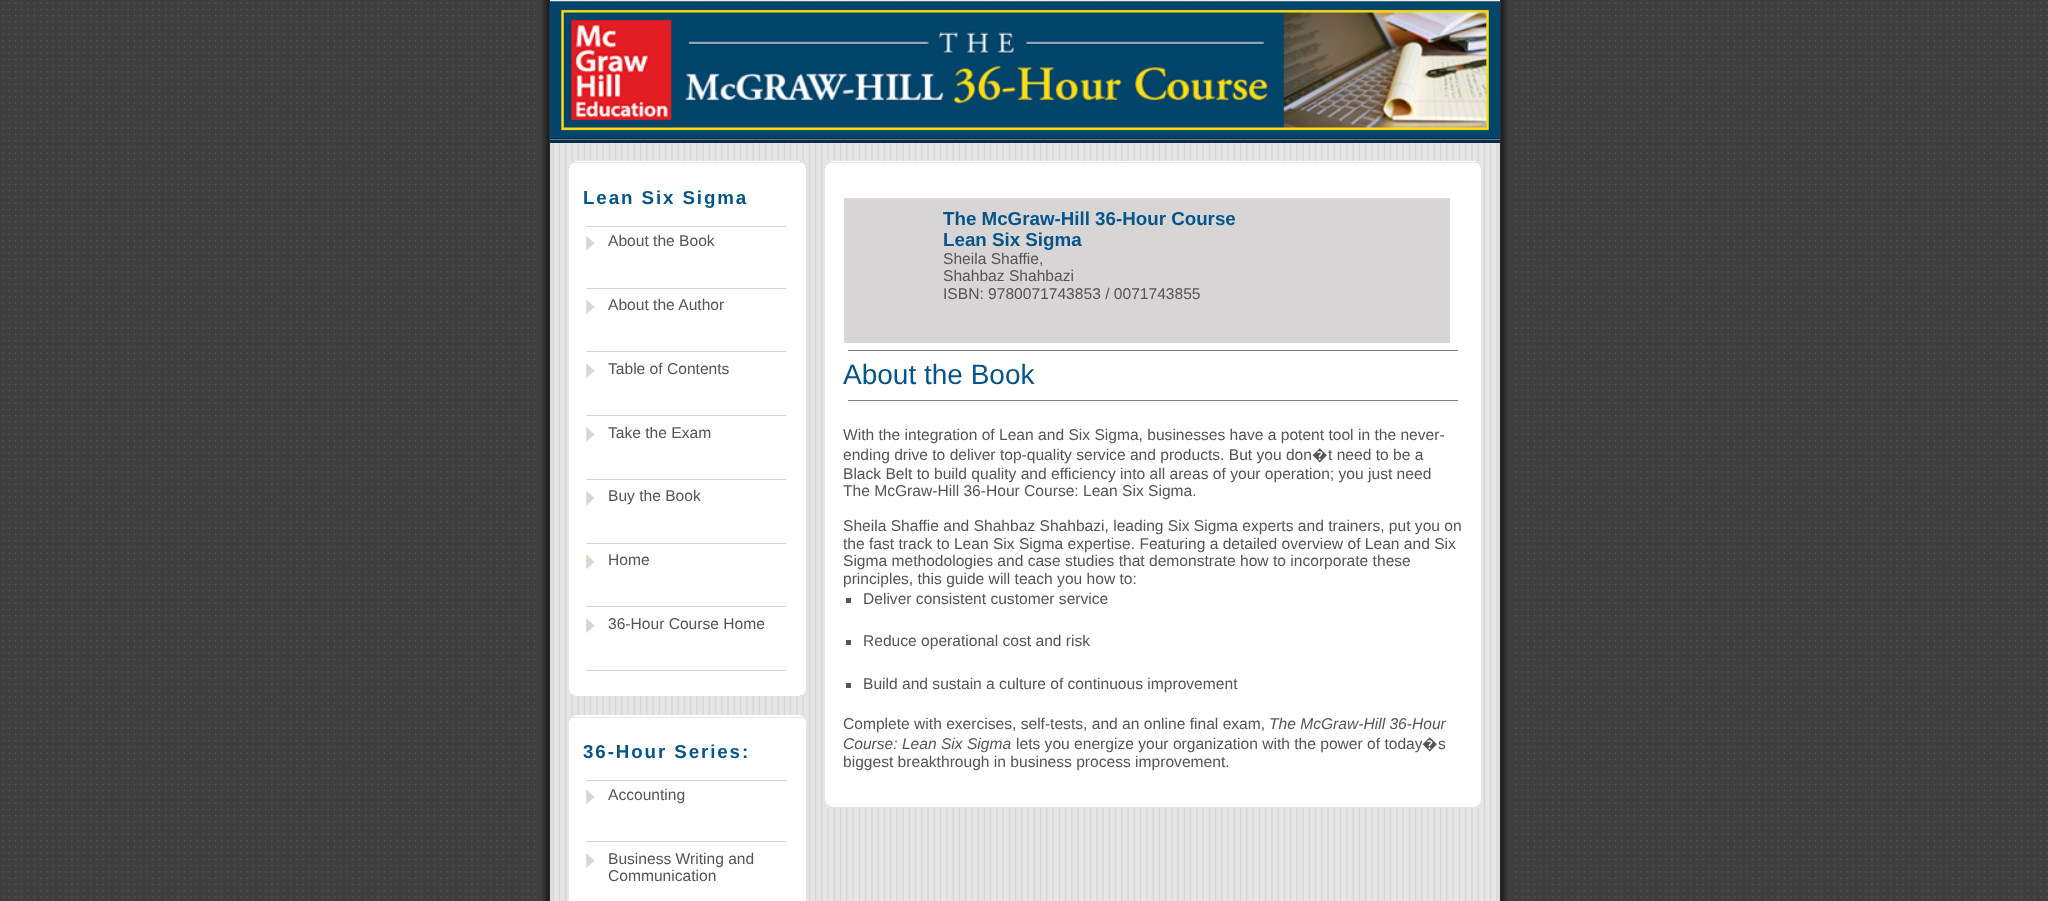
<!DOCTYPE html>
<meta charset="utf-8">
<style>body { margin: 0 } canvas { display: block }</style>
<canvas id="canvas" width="2048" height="901"></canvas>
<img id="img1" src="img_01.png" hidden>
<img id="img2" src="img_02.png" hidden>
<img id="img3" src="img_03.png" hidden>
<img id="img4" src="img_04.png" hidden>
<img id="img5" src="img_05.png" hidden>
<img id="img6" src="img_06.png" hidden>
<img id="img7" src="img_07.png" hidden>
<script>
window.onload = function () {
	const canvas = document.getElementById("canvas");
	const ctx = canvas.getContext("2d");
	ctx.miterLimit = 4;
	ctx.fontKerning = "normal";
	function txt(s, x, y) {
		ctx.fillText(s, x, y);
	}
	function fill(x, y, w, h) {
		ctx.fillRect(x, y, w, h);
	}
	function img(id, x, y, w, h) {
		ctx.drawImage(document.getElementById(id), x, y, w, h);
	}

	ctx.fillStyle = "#3F3F3F";
	fill(0, 0, 2048, 901);
	img("img1", 2, 2, 2046, 896);
	img("img2", 540, 0, 970, 901);
	img("img3", 550, 1, 950, 137);
	ctx.fillStyle = "#F2F2F0";
	fill(550, 0, 950, 1);
	ctx.fillStyle = "#002D4C";
	fill(550, 138, 950, 5);
	ctx.fillStyle = "#7D7D7D";
	fill(550, 139, 950, 1);
	ctx.fillStyle = "#FFFFFF";
	fill(569, 168, 237, 522);
	ctx.fillStyle = "#E5E5E5";
	fill(569, 161, 237, 7);
	ctx.fillStyle = "#FFFFFF";
	fill(575, 161, 225, 1);
	fill(573, 163, 230, 1);
	fill(571, 164, 233, 1);
	fill(570, 165, 235, 3);
	ctx.fillStyle = "#D4D4D4";
	fill(586, 226, 200, 1);
	fill(586, 288, 200, 1);
	img("img4", 586, 236, 9, 14);
	fill(586, 351, 200, 1);
	img("img5", 586, 300, 9, 14);
	fill(586, 415, 200, 1);
	img("img6", 586, 363, 9, 15);
	fill(586, 479, 200, 1);
	img("img7", 586, 427, 9, 15);
	fill(586, 543, 200, 1);
	img("img4", 586, 491, 9, 14);
	fill(586, 606, 200, 1);
	img("img5", 586, 555, 9, 14);
	fill(586, 670, 200, 1);
	img("img6", 586, 618, 9, 15);
	ctx.fillStyle = "#E5E5E5";
	fill(569, 690, 237, 6);
	ctx.fillStyle = "#FFFFFF";
	fill(570, 690, 235, 3);
	fill(571, 693, 233, 1);
	fill(573, 694, 230, 1);
	fill(575, 695, 225, 1);
	fill(569, 721, 237, 180);
	ctx.fillStyle = "#E5E5E5";
	fill(569, 715, 237, 6);
	ctx.fillStyle = "#FFFFFF";
	fill(575, 715, 225, 1);
	fill(573, 716, 230, 1);
	fill(571, 718, 233, 1);
	fill(570, 719, 235, 2);
	ctx.fillStyle = "#D4D4D4";
	fill(586, 780, 200, 1);
	fill(586, 841, 200, 1);
	img("img5", 586, 790, 9, 14);
	img("img6", 586, 853, 9, 15);
	ctx.fillStyle = "#E5E5E5";
	fill(825, 161, 656, 7);
	ctx.fillStyle = "#FFFFFF";
	fill(831, 161, 644, 1);
	fill(829, 163, 649, 1);
	fill(828, 164, 651, 1);
	fill(826, 165, 654, 3);
	fill(825, 168, 656, 633);
	ctx.fillStyle = "#D7D5D5";
	fill(844, 198, 606, 145);
	ctx.fillStyle = "#808080";
	fill(848, 350, 610, 1);
	fill(848, 400, 610, 1);
	ctx.fillStyle = "#555555";
	fill(846, 598, 5, 5);
	fill(846, 640, 5, 5);
	fill(846, 683, 5, 5);
	ctx.fillStyle = "#E5E5E5";
	fill(825, 801, 656, 7);
	ctx.fillStyle = "#FFFFFF";
	fill(826, 801, 654, 3);
	fill(828, 804, 651, 1);
	fill(829, 805, 649, 1);
	fill(831, 806, 644, 1);
	ctx.letterSpacing = "1.9px";
	ctx.font = "bold 18.75px Liberation Sans";
	ctx.fillStyle = "#075489";
	txt("Lean Six Sigma", 583, 204);
	ctx.letterSpacing = "0px";
	ctx.font = "15.6px Liberation Sans";
	ctx.fillStyle = "#555555";
	txt("About the Book", 608, 246);
	txt("About the Author", 608, 310);
	txt("Table of Contents", 608, 374);
	txt("Take the Exam", 608, 438);
	txt("Buy the Book", 608, 501);
	txt("Home", 608, 565);
	txt("36-Hour Course Home", 608, 629);
	ctx.letterSpacing = "1.9px";
	ctx.font = "bold 18.75px Liberation Sans";
	ctx.fillStyle = "#075489";
	txt("36-Hour Series:", 583, 758);
	ctx.letterSpacing = "0px";
	ctx.font = "15.6px Liberation Sans";
	ctx.fillStyle = "#555555";
	txt("Accounting", 608, 800);
	txt("Business Writing and", 608, 864);
	txt("Communication", 608, 881);
	ctx.font = "bold 18.75px Liberation Sans";
	ctx.fillStyle = "#075489";
	txt("The McGraw-Hill 36-Hour Course", 943, 225);
	txt("Lean Six Sigma", 943, 246);
	ctx.font = "15.6px Liberation Sans";
	ctx.fillStyle = "#555555";
	txt("Sheila Shaffie,", 943, 264);
	txt("Shahbaz Shahbazi", 943, 281);
	txt("ISBN: 9780071743853 / 0071743855", 943, 299);
	ctx.font = "28px Liberation Sans";
	ctx.fillStyle = "#075489";
	txt("About the Book", 843, 384);
	ctx.font = "15.6px Liberation Sans";
	ctx.fillStyle = "#555555";
	txt("With the integration of Lean and Six Sigma, businesses have a potent tool in the never-", 843, 440);
	txt("ending drive to deliver top-quality service and products. But you don", 843, 460);
	ctx.font = "15.6px Noto Sans";
	txt("�", 1312, 460);
	ctx.font = "15.6px Liberation Sans";
	txt("t need to be a", 1328, 460);
	txt("Black Belt to build quality and efficiency into all areas of your operation; you just need", 843, 479);
	txt("The McGraw-Hill 36-Hour Course: Lean Six Sigma.", 843, 496);
	txt("Sheila Shaffie and Shahbaz Shahbazi, leading Six Sigma experts and trainers, put you on", 843, 531);
	txt("the fast track to Lean Six Sigma expertise. Featuring a detailed overview of Lean and Six", 843, 549);
	txt("Sigma methodologies and case studies that demonstrate", 843, 566);
	txt("how to incorporate these", 1240, 566);
	txt("principles, this guide will teach you how to:", 843, 584);
	txt("Deliver consistent customer service", 863, 604);
	txt("Reduce operational cost and risk", 863, 646);
	txt("Build and sustain a culture of continuous improvement", 863, 689);
	txt("Complete with exercises, self-tests, and an online final exam,", 843, 729);
	ctx.font = "italic 15.6px Liberation Sans";
	txt("The McGraw-Hill 36-Hour", 1269, 729);
	txt("Course: Lean Six Sigma", 843, 749);
	ctx.font = "15.6px Liberation Sans";
	txt("lets you energize your organization with the power of today", 1016, 749);
	ctx.font = "15.6px Noto Sans";
	txt("�", 1422, 749);
	ctx.font = "15.6px Liberation Sans";
	txt("s", 1438, 749);
	txt("biggest breakthrough in business process improvement.", 843, 767);
};
</script>
